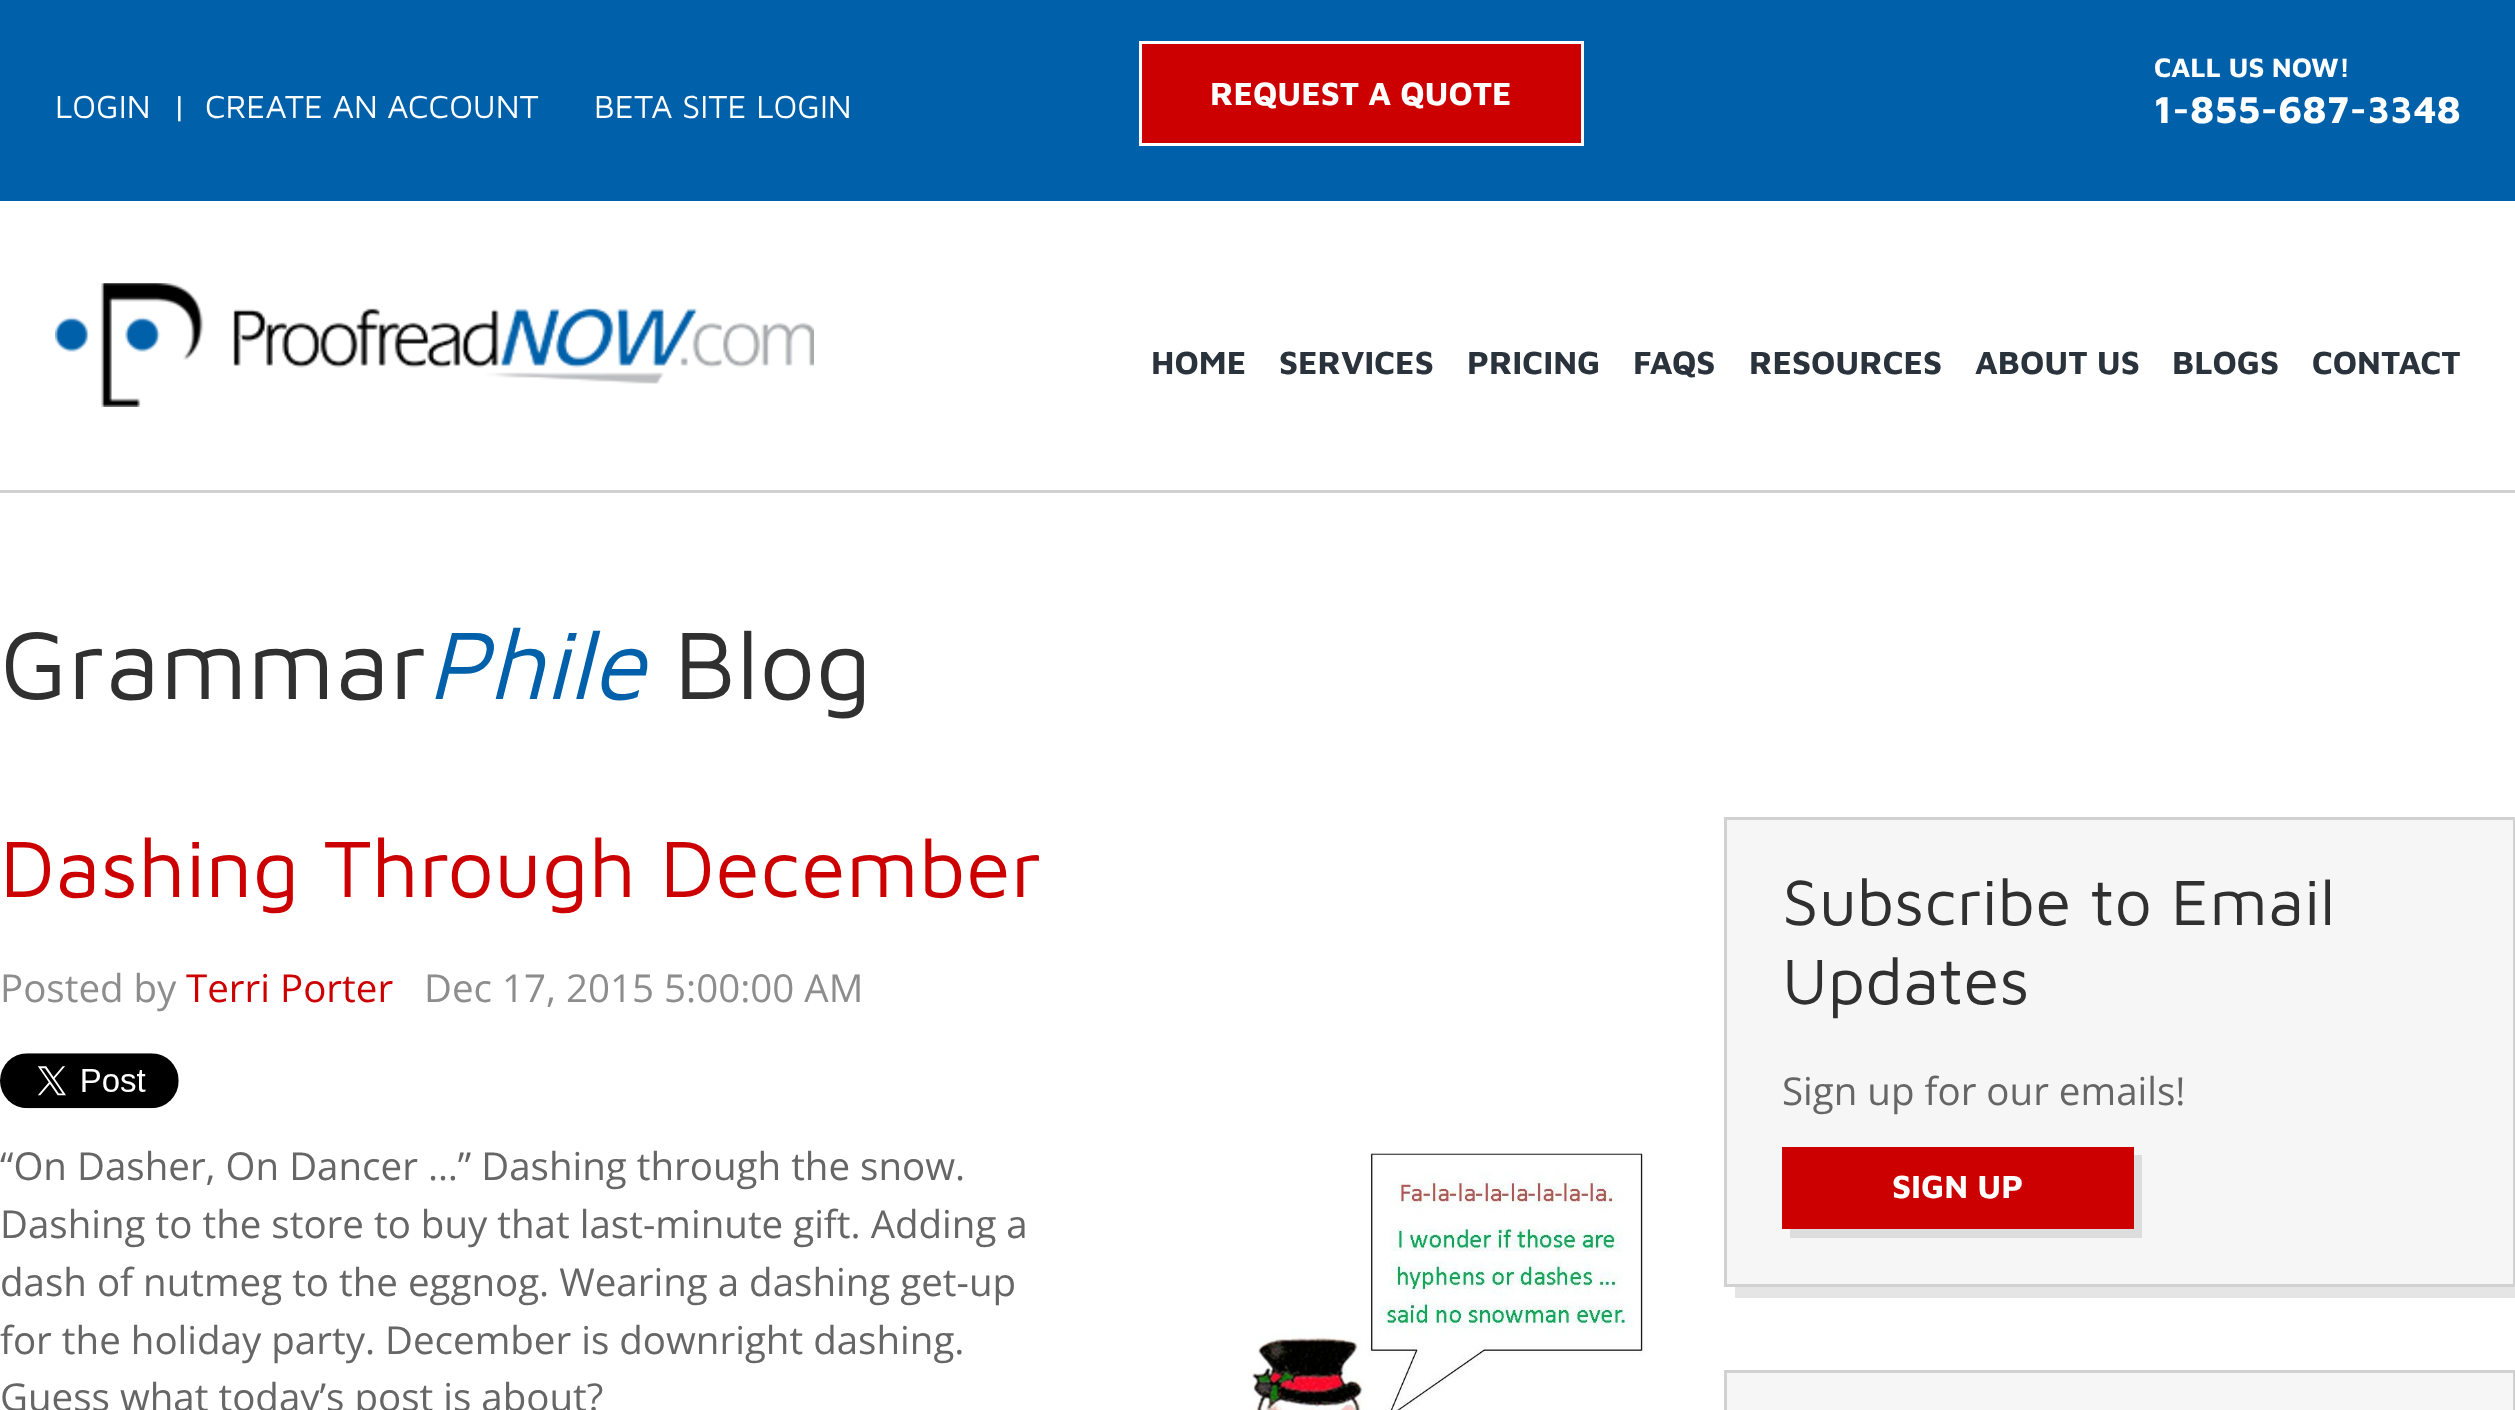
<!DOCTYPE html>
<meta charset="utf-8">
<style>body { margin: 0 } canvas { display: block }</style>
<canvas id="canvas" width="2515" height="1410"></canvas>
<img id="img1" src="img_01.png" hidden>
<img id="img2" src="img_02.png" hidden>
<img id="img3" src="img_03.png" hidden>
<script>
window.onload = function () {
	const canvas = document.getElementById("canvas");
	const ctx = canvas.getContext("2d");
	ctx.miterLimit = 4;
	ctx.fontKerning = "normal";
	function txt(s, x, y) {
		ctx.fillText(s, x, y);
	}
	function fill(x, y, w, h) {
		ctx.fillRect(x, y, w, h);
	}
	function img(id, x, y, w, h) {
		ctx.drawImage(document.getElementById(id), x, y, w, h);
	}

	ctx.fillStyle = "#FFFFFF";
	fill(0, 0, 2515, 1410);
	ctx.fillStyle = "#0061AA";
	fill(0, 0, 2515, 201);
	ctx.fillStyle = "#CC0000";
	ctx.beginPath();
	ctx.rect(1140.5, 42.5, 442, 102);
	ctx.fill();
	ctx.strokeStyle = "#FFFFFF";
	ctx.lineWidth = 3;
	ctx.stroke();
	ctx.fillStyle = "#D1D1D1";
	fill(0, 490, 2515, 3);
	img("img1", 55, 283, 759, 124);
	img("img2", 0, 1053, 179, 56);
	img("img3", 1248, 1152, 397, 258);
	ctx.fillStyle = "#E5E5E5";
	ctx.beginPath();
	ctx.moveTo(1735, 1287);
	ctx.lineTo(1735, 1298);
	ctx.lineTo(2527, 1298);
	ctx.lineTo(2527, 828);
	ctx.lineTo(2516, 828);
	ctx.lineTo(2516, 1287);
	ctx.closePath();
	ctx.fill();
	ctx.fillStyle = "#F6F6F6";
	ctx.beginPath();
	ctx.rect(1725.5, 818.5, 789, 467);
	ctx.fill();
	ctx.strokeStyle = "#D1D1D1";
	ctx.stroke();
	ctx.fillStyle = "#DDDDDD";
	ctx.beginPath();
	ctx.moveTo(1790, 1229);
	ctx.lineTo(1790, 1238);
	ctx.lineTo(2142, 1238);
	ctx.lineTo(2142, 1155);
	ctx.lineTo(2134, 1155);
	ctx.lineTo(2134, 1229);
	ctx.closePath();
	ctx.fill();
	ctx.fillStyle = "#CC0000";
	fill(1782, 1147, 352, 82);
	ctx.fillStyle = "#F6F6F6";
	ctx.beginPath();
	ctx.rect(1725.5, 1371.5, 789, 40);
	ctx.fill();
	ctx.stroke();
	ctx.font = "33px Maven Pro";
	ctx.fillStyle = "#FFFFFF";
	txt("LOGIN", 55, 118);
	txt("|", 172, 118);
	txt("CREATE AN ACCOUNT", 205, 118);
	txt("BETA SITE LOGIN", 594, 118);
	ctx.font = "bold 33px Maven Pro";
	txt("REQUEST A QUOTE", 1210, 105);
	ctx.font = "bold 27.5px Maven Pro";
	txt("CALL US NOW!", 2154, 77);
	ctx.font = "bold 38.5px Maven Pro";
	txt("1-855-687-3348", 2154, 123);
	ctx.font = "bold 33px Maven Pro";
	ctx.fillStyle = "#2A333B";
	txt("HOME", 1151, 374);
	txt("SERVICES", 1279, 374);
	txt("PRICING", 1467, 374);
	txt("FAQS", 1633, 374);
	txt("RESOURCES", 1749, 374);
	txt("ABOUT US", 1975, 374);
	txt("BLOGS", 2172, 374);
	txt("CONTACT", 2312, 374);
	ctx.font = "99px Maven Pro";
	ctx.fillStyle = "#303030";
	txt("Grammar", 0, 699);
	ctx.font = "italic 99px Maven Pro";
	ctx.fillStyle = "#0061AA";
	txt("Phile", 427, 699);
	ctx.font = "99px Maven Pro";
	ctx.fillStyle = "#303030";
	txt("Blog", 674, 699);
	ctx.font = "82.5px Maven Pro";
	ctx.fillStyle = "#CC0000";
	txt("Dashing Through December", 0, 897);
	ctx.font = "38.5px Open Sans";
	ctx.fillStyle = "#8D8D8D";
	txt("Posted by", 0, 1002);
	ctx.fillStyle = "#CC0000";
	txt("Terri Porter", 186, 1002);
	ctx.fillStyle = "#8D8D8D";
	txt("Dec 17, 2015 5:00:00 AM", 424, 1002);
	ctx.fillStyle = "#666666";
	txt("“On Dasher, On Dancer …” Dashing through the snow.", 0, 1180);
	txt("Dashing to the store to buy that last-minute gift. Adding a", 0, 1238);
	txt("dash of nutmeg to the eggnog. Wearing a dashing get-up", 0, 1296);
	txt("for the holiday party. December is downright dashing.", 0, 1354);
	txt("Guess what today’s post is about?", 0, 1411);
	ctx.font = "66px Maven Pro";
	ctx.fillStyle = "#303030";
	txt("Subscribe to Email", 1782, 925);
	txt("Updates", 1782, 1004);
	ctx.font = "38.5px Open Sans";
	ctx.fillStyle = "#666666";
	txt("Sign up for our emails!", 1782, 1105);
	ctx.font = "bold 33px Maven Pro";
	ctx.fillStyle = "#FFFFFF";
	txt("SIGN UP", 1892, 1198);
};
</script>
